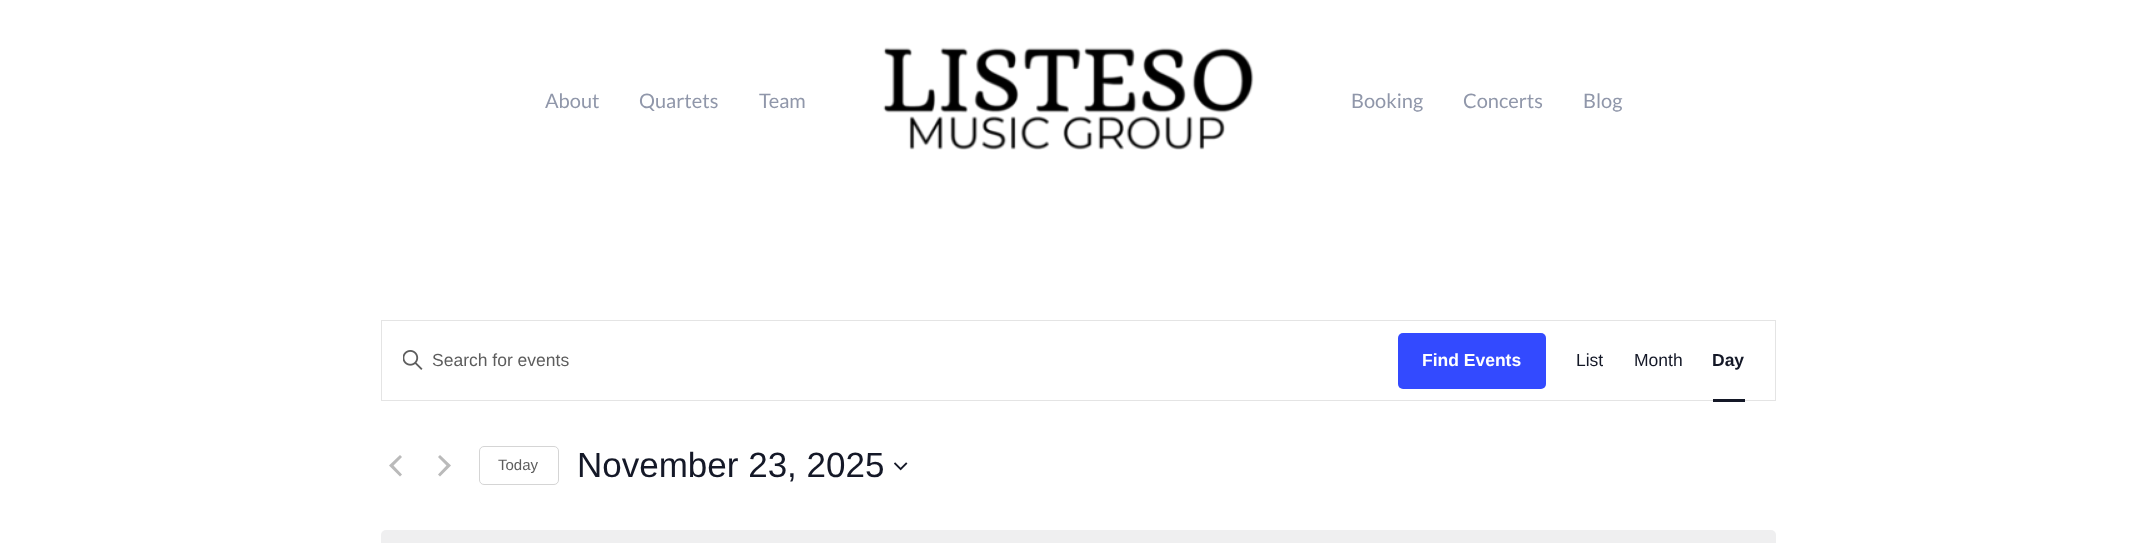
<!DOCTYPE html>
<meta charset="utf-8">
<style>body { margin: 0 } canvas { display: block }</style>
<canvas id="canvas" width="2156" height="543"></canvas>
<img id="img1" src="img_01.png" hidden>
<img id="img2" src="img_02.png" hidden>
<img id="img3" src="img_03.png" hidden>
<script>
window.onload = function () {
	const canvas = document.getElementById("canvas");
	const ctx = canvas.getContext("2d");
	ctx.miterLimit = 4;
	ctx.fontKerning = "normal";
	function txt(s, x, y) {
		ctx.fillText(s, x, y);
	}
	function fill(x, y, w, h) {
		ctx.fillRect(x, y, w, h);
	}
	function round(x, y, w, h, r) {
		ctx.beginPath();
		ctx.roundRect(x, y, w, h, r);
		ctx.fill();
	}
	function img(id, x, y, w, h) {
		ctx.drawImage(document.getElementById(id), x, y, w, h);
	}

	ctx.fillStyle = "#FFFFFF";
	fill(0, 0, 2156, 543);
	img("img1", 883, 47, 371, 103);
	ctx.strokeStyle = "#E4E4E4";
	ctx.strokeRect(381.5, 320.5, 1394, 80);
	img("img2", 403, 350, 20, 20);
	ctx.fillStyle = "#334AFF";
	round(1398, 333, 148, 56, 5);
	ctx.fillStyle = "#141827";
	fill(1713, 399, 32, 3);
	ctx.fillStyle = "#BABABA";
	ctx.beginPath();
	ctx.moveTo(402, 474.5);
	ctx.lineTo(400, 476.5);
	ctx.lineTo(389, 465.5);
	ctx.lineTo(400, 455);
	ctx.lineTo(402, 457);
	ctx.lineTo(393.5, 465.5);
	ctx.closePath();
	ctx.moveTo(438, 457);
	ctx.lineTo(440, 455);
	ctx.lineTo(451, 465.5);
	ctx.lineTo(440, 476.5);
	ctx.lineTo(438, 474.5);
	ctx.lineTo(446.5, 465.5);
	ctx.closePath();
	ctx.fill();
	ctx.beginPath();
	ctx.roundRect(479.5, 446.5, 79, 38, 4.5);
	ctx.strokeStyle = "#D5D5D5";
	ctx.stroke();
	img("img3", 894, 462, 14, 9);
	ctx.fillStyle = "#EFEFF0";
	round(381, 530, 1395, 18, 5);
	ctx.font = "20px Lato";
	ctx.fillStyle = "#9097AA";
	txt("About", 545, 108);
	txt("Quartets", 639, 108);
	txt("Team", 759, 108);
	txt("Booking", 1351, 108);
	txt("Concerts", 1463, 108);
	txt("Blog", 1583, 108);
	ctx.font = "17.5px Liberation Sans";
	ctx.fillStyle = "#5D5D5D";
	txt("Search for events", 432, 366);
	ctx.font = "bold 17.5px Liberation Sans";
	ctx.fillStyle = "#FFFFFF";
	txt("Find Events", 1422, 366);
	ctx.font = "17.5px Liberation Sans";
	ctx.fillStyle = "#141827";
	txt("List", 1576, 366);
	txt("Month", 1634, 366);
	ctx.font = "bold 17.5px Liberation Sans";
	txt("Day", 1712, 366);
	ctx.font = "15px Liberation Sans";
	ctx.fillStyle = "#5D5D5D";
	txt("Today", 498, 470);
	ctx.font = "35px Liberation Sans";
	ctx.fillStyle = "#141827";
	txt("November 23, 2025", 577, 477);
};
</script>
